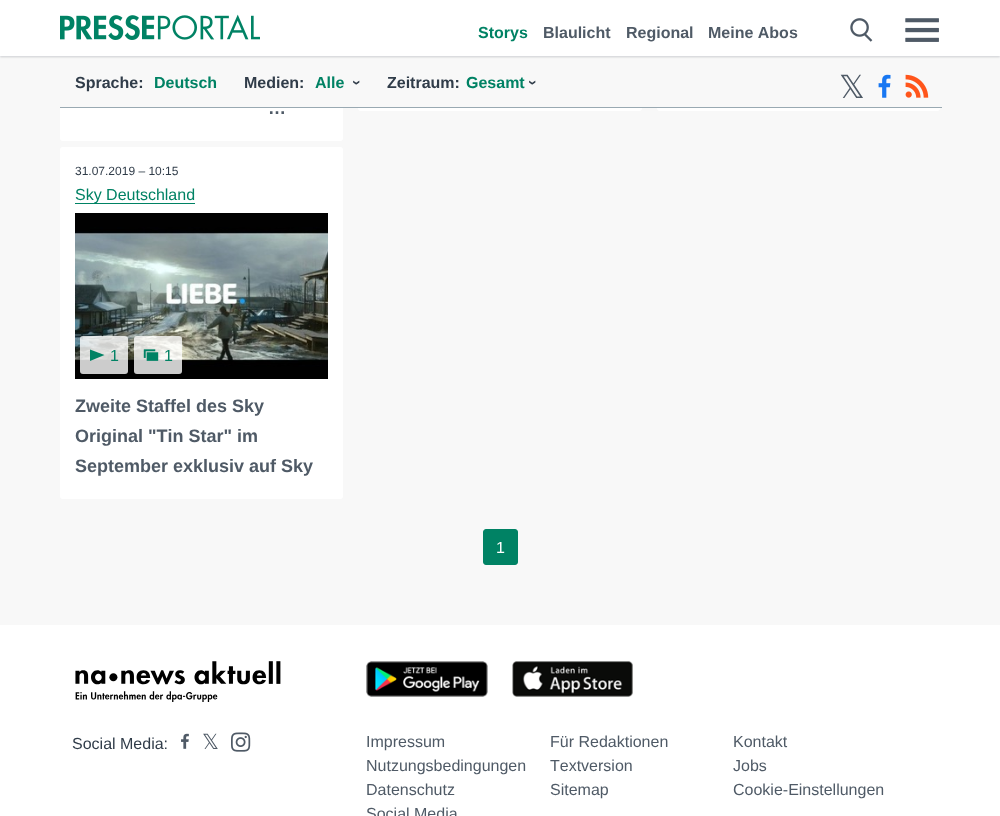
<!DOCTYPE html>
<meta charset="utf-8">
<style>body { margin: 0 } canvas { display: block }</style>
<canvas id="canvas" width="1000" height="816"></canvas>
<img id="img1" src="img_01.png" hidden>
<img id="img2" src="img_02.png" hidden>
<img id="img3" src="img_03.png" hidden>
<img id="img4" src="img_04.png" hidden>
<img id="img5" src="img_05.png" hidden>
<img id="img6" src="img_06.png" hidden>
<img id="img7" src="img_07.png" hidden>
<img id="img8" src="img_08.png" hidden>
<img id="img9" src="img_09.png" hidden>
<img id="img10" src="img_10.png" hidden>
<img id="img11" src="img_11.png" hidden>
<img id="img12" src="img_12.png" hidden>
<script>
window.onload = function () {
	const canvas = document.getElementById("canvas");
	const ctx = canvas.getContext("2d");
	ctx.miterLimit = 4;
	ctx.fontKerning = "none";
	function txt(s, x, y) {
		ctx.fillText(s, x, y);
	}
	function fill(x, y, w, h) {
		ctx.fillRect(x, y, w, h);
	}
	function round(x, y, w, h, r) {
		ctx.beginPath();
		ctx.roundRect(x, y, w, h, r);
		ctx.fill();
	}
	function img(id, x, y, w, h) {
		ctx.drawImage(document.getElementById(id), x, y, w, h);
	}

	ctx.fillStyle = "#F8F8F8";
	fill(0, 0, 1000, 816);
	ctx.fillStyle = "#FFFFFF";
	round(358, -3, 284, 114, 3);
	round(657, -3, 283, 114, 3);
	round(60, -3, 283, 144, 3);
	ctx.fillStyle = "#F8F8F8";
	fill(60, 56, 880, 52);
	ctx.fillStyle = "rgba(79, 90, 102, 0.16)";
	ctx.filter = "blur(1px)";
	ctx.beginPath();
	ctx.rect(0, 1, 1000, 56);
	ctx.fill();
	ctx.filter = "none";
	ctx.fillStyle = "rgba(79, 90, 102, 0.1)";
	ctx.filter = "blur(1px)";
	ctx.beginPath();
	ctx.rect(0, 1, 1000, 56);
	ctx.fill();
	ctx.filter = "none";
	ctx.fillStyle = "#FFFFFF";
	fill(0, 0, 1000, 56);
	img("img1", 60, 14, 200, 26);
	img("img2", 850, 18, 23, 24);
	img("img3", 905, 18, 34, 24);
	ctx.fillStyle = "#99A9B2";
	fill(60, 107, 882, 1);
	img("img4", 878, 74, 13, 24);
	img("img5", 905, 74, 24, 24);
	ctx.fillStyle = "#FFFFFF";
	round(60, 147, 283, 352, 3);
	ctx.fillStyle = "#008264";
	fill(75, 203, 120, 1);
	img("img6", 75, 213, 253, 166);
	ctx.fillStyle = "rgba(255, 255, 255, 0.8)";
	round(80, 336, 48, 38, 3);
	ctx.fillStyle = "#008264";
	ctx.beginPath();
	ctx.moveTo(90, 349.5);
	ctx.lineTo(104.5, 355);
	ctx.lineTo(90, 361);
	ctx.closePath();
	ctx.fill();
	ctx.fillStyle = "rgba(255, 255, 255, 0.8)";
	round(134, 336, 48, 38, 3);
	img("img7", 143, 349, 16, 12);
	ctx.fillStyle = "#008264";
	ctx.beginPath();
	ctx.roundRect(483.5, 529.5, 34, 35, 2.5);
	ctx.fill();
	ctx.strokeStyle = "#008264";
	ctx.stroke();
	ctx.fillStyle = "#FFFFFF";
	fill(0, 625, 1000, 191);
	img("img8", 75, 661, 206, 41);
	img("img9", 366, 661, 122, 36);
	img("img10", 512, 661, 121, 36);
	img("img11", 181, 733, 8, 16);
	img("img12", 231, 732, 20, 20);
	ctx.font = "bold 16px Liberation Sans";
	ctx.fillStyle = "#008264";
	txt("Storys", 478, 38);
	ctx.fillStyle = "#4F5A66";
	txt("Blaulicht", 543, 38);
	txt("Regional", 626, 38);
	txt("Meine Abos", 708, 38);
	ctx.fillStyle = "#303C49";
	txt("Sprache:", 75, 88);
	ctx.fillStyle = "#008264";
	txt("Deutsch", 154, 88);
	ctx.fillStyle = "#303C49";
	txt("Medien:", 244, 88);
	ctx.fillStyle = "#008264";
	txt("Alle", 315, 88);
	ctx.fillStyle = "#303C49";
	ctx.save();
	ctx.translate(352, 80);
	ctx.rotate(90 * Math.PI / 180);
	ctx.fillText("›", 0, 0);
	ctx.restore();
	txt("Zeitraum:", 387, 88);
	ctx.fillStyle = "#008264";
	txt("Gesamt", 466, 88);
	ctx.fillStyle = "#303C49";
	ctx.save();
	ctx.translate(528, 80);
	ctx.rotate(90 * Math.PI / 180);
	ctx.fillText("›", 0, 0);
	ctx.restore();
	ctx.font = "32px DejaVu Sans";
	ctx.fillStyle = "#4F5A66";
	txt("𝕏", 839, 98);
	ctx.font = "bold 18px Liberation Sans";
	txt("…", 268, 114);
	ctx.font = "12px Liberation Sans";
	ctx.fillStyle = "#303C49";
	txt("31.07.2019 – 10:15", 75, 175);
	ctx.font = "16px Liberation Sans";
	ctx.fillStyle = "#008264";
	txt("Sky Deutschland", 75, 200);
	txt("1", 110, 361);
	txt("1", 164, 361);
	ctx.font = "bold 18px Liberation Sans";
	ctx.fillStyle = "#4F5A66";
	txt("Zweite Staffel des Sky", 75, 412);
	txt("Original \"Tin Star\" im", 75, 442);
	txt("September exklusiv auf Sky", 75, 472);
	ctx.font = "16px Liberation Sans";
	ctx.fillStyle = "#FFFFFF";
	txt("1", 496, 553);
	ctx.fillStyle = "#303C49";
	txt("Social Media:", 72, 749);
	ctx.font = "21px DejaVu Sans";
	ctx.fillStyle = "#4F5A66";
	txt("𝕏", 202, 749);
	ctx.font = "16px Liberation Sans";
	txt("Impressum", 366, 747);
	txt("Für Redaktionen", 550, 747);
	txt("Kontakt", 733, 747);
	txt("Nutzungsbedingungen", 366, 771);
	txt("Textversion", 550, 771);
	txt("Jobs", 733, 771);
	txt("Datenschutz", 366, 795);
	txt("Sitemap", 550, 795);
	txt("Cookie-Einstellungen", 733, 795);
	txt("Social Media", 366, 819);
};
</script>
